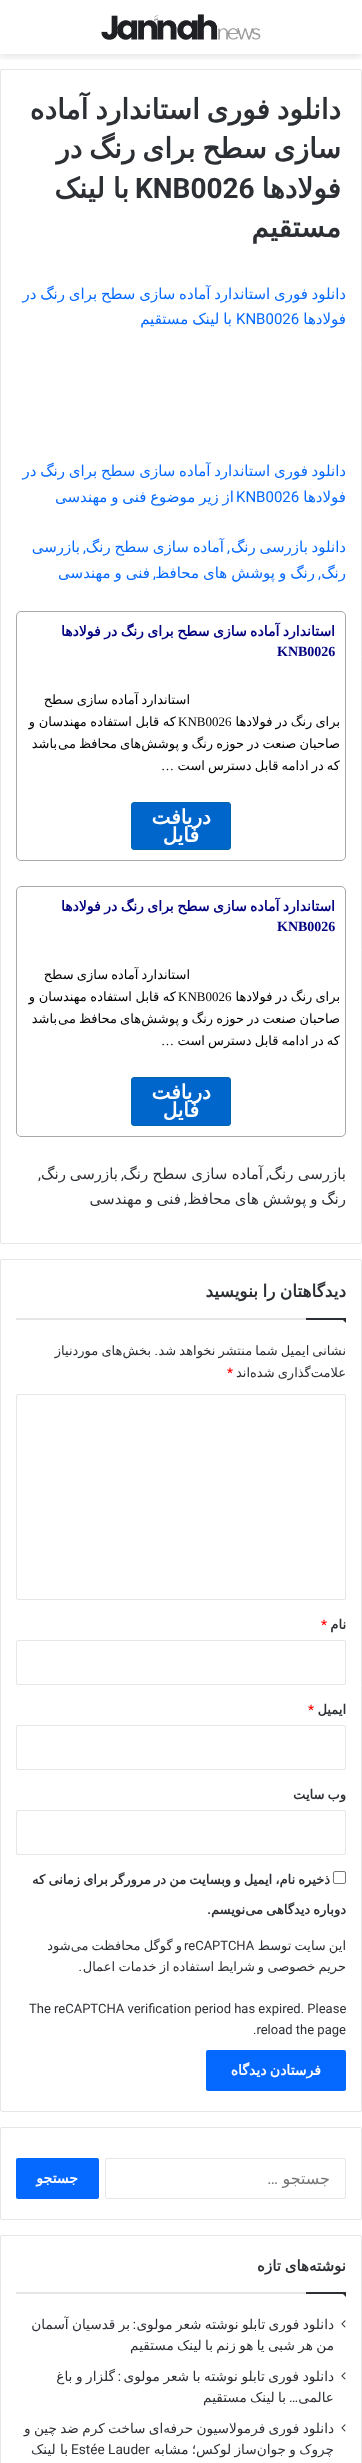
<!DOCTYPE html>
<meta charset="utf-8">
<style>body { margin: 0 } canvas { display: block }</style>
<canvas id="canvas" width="362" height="2463"></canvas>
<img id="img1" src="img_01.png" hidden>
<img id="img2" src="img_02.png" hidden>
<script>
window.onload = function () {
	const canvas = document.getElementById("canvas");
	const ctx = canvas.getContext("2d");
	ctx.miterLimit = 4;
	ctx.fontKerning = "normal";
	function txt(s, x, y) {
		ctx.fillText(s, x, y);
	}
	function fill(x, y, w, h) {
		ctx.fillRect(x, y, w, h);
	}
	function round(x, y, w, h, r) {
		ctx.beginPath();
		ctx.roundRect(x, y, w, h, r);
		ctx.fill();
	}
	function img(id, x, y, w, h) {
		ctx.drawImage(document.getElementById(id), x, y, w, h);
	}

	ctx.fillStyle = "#FFFFFF";
	fill(0, 0, 362, 2463);
	ctx.save();
	ctx.beginPath();
	ctx.rect(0, 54, 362, 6);
	ctx.clip();
	ctx.fillStyle = "rgba(0, 0, 0, 0.1)";
	ctx.filter = "blur(3.5px)";
	ctx.beginPath();
	ctx.rect(0, 3, 362, 54);
	ctx.fill();
	ctx.filter = "none";
	ctx.restore();
	img("img1", 101, 14, 160, 26);
	ctx.beginPath();
	ctx.roundRect(0.5, 69.5, 361, 1174, 1.5);
	ctx.strokeStyle = "#E6E6E6";
	ctx.stroke();
	ctx.beginPath();
	ctx.roundRect(16.5, 611.5, 329, 249, 4.5);
	ctx.strokeStyle = "#A9A9A9";
	ctx.stroke();
	ctx.fillStyle = "#0066CC";
	ctx.beginPath();
	ctx.roundRect(131.5, 802.5, 99, 47, 2.5);
	ctx.fill();
	ctx.strokeStyle = "#0066AA";
	ctx.stroke();
	ctx.beginPath();
	ctx.roundRect(16.5, 886.5, 329, 250, 4.5);
	ctx.strokeStyle = "#A9A9A9";
	ctx.stroke();
	ctx.beginPath();
	ctx.roundRect(131.5, 1077.5, 99, 48, 2.5);
	ctx.fill();
	ctx.strokeStyle = "#0066AA";
	ctx.stroke();
	ctx.beginPath();
	ctx.roundRect(0.5, 1259.5, 361, 852, 1.5);
	ctx.strokeStyle = "#E6E6E6";
	ctx.stroke();
	ctx.fillStyle = "#E6E6E6";
	fill(16, 1318, 290, 2);
	ctx.fillStyle = "#2C2F34";
	ctx.beginPath();
	ctx.moveTo(341, 1318);
	ctx.lineTo(346, 1318);
	ctx.lineTo(346, 1323);
	ctx.closePath();
	ctx.fill();
	fill(306, 1318, 40, 2);
	ctx.beginPath();
	ctx.roundRect(16.5, 1394.5, 329, 205, 1.5);
	ctx.stroke();
	ctx.beginPath();
	ctx.roundRect(16.5, 1640.5, 329, 44, 1.5);
	ctx.stroke();
	ctx.beginPath();
	ctx.roundRect(16.5, 1725.5, 329, 44, 1.5);
	ctx.stroke();
	ctx.beginPath();
	ctx.roundRect(16.5, 1810.5, 329, 44, 1.5);
	ctx.stroke();
	ctx.beginPath();
	ctx.roundRect(333.5, 1871.5, 12, 12, 1.5);
	ctx.strokeStyle = "#767676";
	ctx.stroke();
	ctx.fillStyle = "#0669FF";
	round(206, 2050, 140, 41, 2);
	ctx.beginPath();
	ctx.roundRect(0.5, 2127.5, 361, 92, 1.5);
	ctx.strokeStyle = "#E6E6E6";
	ctx.stroke();
	ctx.beginPath();
	ctx.roundRect(105.5, 2158.5, 240, 40, 1.5);
	ctx.stroke();
	round(16, 2158, 83, 41, 2);
	ctx.beginPath();
	ctx.roundRect(0.5, 2235.5, 361, 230, 1.5);
	ctx.stroke();
	ctx.fillStyle = "#E6E6E6";
	fill(16, 2292, 290, 2);
	ctx.fillStyle = "#2C2F34";
	ctx.beginPath();
	ctx.moveTo(341, 2292);
	ctx.lineTo(346, 2292);
	ctx.lineTo(346, 2297);
	ctx.closePath();
	ctx.fill();
	fill(306, 2292, 40, 2);
	img("img2", 341, 2320, 5, 8);
	img("img2", 341, 2372, 5, 8);
	img("img2", 341, 2424, 5, 8);
	ctx.wordSpacing = "-2px";
	ctx.direction = "rtl";
	ctx.font = "bold 28px DejaVu Sans";
	txt("دانلود فوری استاندارد آماده", 341, 119);
	txt("سازی سطح برای رنگ در", 341, 158);
	ctx.wordSpacing = "0px";
	txt("فولادها", 341, 198);
	ctx.direction = "ltr";
	ctx.font = "bold 28px Roboto";
	txt("KNB0026", 135, 198);
	ctx.wordSpacing = "-1px";
	ctx.direction = "rtl";
	ctx.font = "bold 28px DejaVu Sans";
	txt("با لینک", 129, 198);
	ctx.wordSpacing = "0px";
	txt("مستقیم", 341, 237);
	ctx.wordSpacing = "-1px";
	ctx.font = "15px DejaVu Sans";
	ctx.fillStyle = "#0669FF";
	txt("دانلود فوری استاندارد آماده سازی سطح برای رنگ در", 346, 299);
	ctx.wordSpacing = "0px";
	txt("فولادها", 346, 324);
	ctx.direction = "ltr";
	ctx.font = "15px Roboto";
	txt("KNB0026", 236, 324);
	ctx.wordSpacing = "-0.75px";
	ctx.direction = "rtl";
	ctx.font = "15px DejaVu Sans";
	txt("با لینک مستقیم", 232, 324);
	ctx.wordSpacing = "-1px";
	txt("دانلود فوری استاندارد آماده سازی سطح برای رنگ در", 346, 476);
	ctx.wordSpacing = "0px";
	txt("فولادها", 346, 502);
	ctx.direction = "ltr";
	ctx.font = "15px Roboto";
	txt("KNB0026", 236, 502);
	ctx.wordSpacing = "-1px";
	ctx.direction = "rtl";
	ctx.font = "15px DejaVu Sans";
	txt("از زیر موضوع فنی و مهندسی", 234, 502);
	txt("دانلود بازرسی رنگ", 346, 552);
	txt("آماده سازی سطح رنگ", 224, 552);
	ctx.wordSpacing = "0px";
	ctx.font = "15px Roboto";
	txt(",", 230, 552);
	txt(",", 86, 552);
	ctx.font = "15px DejaVu Sans";
	txt("بازرسی", 80, 552);
	txt("رنگ", 346, 578);
	ctx.font = "15px Roboto";
	txt(",", 321, 578);
	ctx.wordSpacing = "-0.75px";
	ctx.font = "15px DejaVu Sans";
	txt("رنگ و پوشش‌ های محافظ", 315, 578);
	ctx.wordSpacing = "0px";
	ctx.font = "15px Roboto";
	txt(",", 156, 578);
	ctx.wordSpacing = "-0.75px";
	ctx.font = "15px DejaVu Sans";
	txt("فنی و مهندسی", 150, 578);
	ctx.wordSpacing = "-1px";
	ctx.font = "bold 14px DejaVu Sans";
	ctx.fillStyle = "#000080";
	txt("استاندارد آماده سازی سطح برای رنگ در فولادها", 335, 636);
	ctx.wordSpacing = "0px";
	ctx.direction = "ltr";
	ctx.font = "bold 14px Liberation Serif";
	txt("KNB0026", 277, 656);
	ctx.wordSpacing = "-1px";
	ctx.direction = "rtl";
	ctx.font = "13px DejaVu Sans";
	ctx.fillStyle = "#000000";
	txt("استاندارد آماده سازی سطح", 190, 704);
	txt("برای رنگ در فولادها", 340, 726);
	ctx.wordSpacing = "-0.5px";
	txt("که قابل استفاده مهندسان و", 176, 726);
	ctx.wordSpacing = "0px";
	ctx.direction = "ltr";
	ctx.font = "13px Liberation Serif";
	txt("KNB0026", 178, 726);
	ctx.wordSpacing = "-1px";
	ctx.direction = "rtl";
	ctx.font = "13px DejaVu Sans";
	txt("های محافظ می", 141, 748);
	txt("صاحبان صنعت در حوزه رنگ و پوشش", 340, 748);
	ctx.wordSpacing = "0px";
	txt("باشد", 57, 748);
	ctx.wordSpacing = "-1px";
	txt("که در ادامه قابل دسترس است", 340, 770);
	ctx.wordSpacing = "0px";
	ctx.direction = "ltr";
	ctx.font = "13px Liberation Serif";
	txt("…", 161, 770);
	ctx.direction = "rtl";
	ctx.font = "bold 20px DejaVu Sans";
	ctx.fillStyle = "#FFFFFF";
	txt("دریافت", 211, 824);
	txt("فایل", 199, 842);
	ctx.wordSpacing = "-1px";
	ctx.font = "bold 14px DejaVu Sans";
	ctx.fillStyle = "#000080";
	txt("استاندارد آماده سازی سطح برای رنگ در فولادها", 335, 911);
	ctx.wordSpacing = "0px";
	ctx.direction = "ltr";
	ctx.font = "bold 14px Liberation Serif";
	txt("KNB0026", 277, 931);
	ctx.wordSpacing = "-1px";
	ctx.direction = "rtl";
	ctx.font = "13px DejaVu Sans";
	ctx.fillStyle = "#000000";
	txt("استاندارد آماده سازی سطح", 190, 979);
	txt("برای رنگ در فولادها", 340, 1001);
	ctx.wordSpacing = "-0.5px";
	txt("که قابل استفاده مهندسان و", 176, 1001);
	ctx.wordSpacing = "0px";
	ctx.direction = "ltr";
	ctx.font = "13px Liberation Serif";
	txt("KNB0026", 178, 1001);
	ctx.wordSpacing = "-1px";
	ctx.direction = "rtl";
	ctx.font = "13px DejaVu Sans";
	txt("های محافظ می", 141, 1023);
	txt("صاحبان صنعت در حوزه رنگ و پوشش", 340, 1023);
	ctx.wordSpacing = "0px";
	txt("باشد", 57, 1023);
	ctx.wordSpacing = "-1px";
	txt("که در ادامه قابل دسترس است", 340, 1045);
	ctx.wordSpacing = "0px";
	ctx.direction = "ltr";
	ctx.font = "13px Liberation Serif";
	txt("…", 161, 1045);
	ctx.direction = "rtl";
	ctx.font = "bold 20px DejaVu Sans";
	ctx.fillStyle = "#FFFFFF";
	txt("دریافت", 211, 1099);
	txt("فایل", 199, 1117);
	ctx.wordSpacing = "-0.5px";
	ctx.font = "15px DejaVu Sans";
	ctx.fillStyle = "#2C2F34";
	txt("بازرسی رنگ", 346, 1179);
	ctx.wordSpacing = "0px";
	ctx.font = "15px Roboto";
	txt(",", 269, 1179);
	ctx.wordSpacing = "-0.5px";
	ctx.font = "15px DejaVu Sans";
	txt("آماده سازی سطح رنگ", 263, 1179);
	ctx.wordSpacing = "0px";
	ctx.font = "15px Roboto";
	txt(",", 124, 1179);
	ctx.wordSpacing = "-1px";
	ctx.font = "15px DejaVu Sans";
	txt("بازرسی رنگ", 118, 1179);
	ctx.wordSpacing = "0px";
	ctx.font = "15px Roboto";
	txt(",", 41, 1179);
	ctx.wordSpacing = "-1px";
	ctx.font = "15px DejaVu Sans";
	txt("رنگ و پوشش‌ های محافظ", 346, 1204);
	ctx.wordSpacing = "0px";
	ctx.font = "15px Roboto";
	txt(",", 187, 1204);
	ctx.wordSpacing = "-1px";
	ctx.font = "15px DejaVu Sans";
	txt("فنی و مهندسی", 181, 1204);
	ctx.font = "bold 17px DejaVu Sans";
	txt("دیدگاهتان را بنویسید", 346, 1297);
	ctx.font = "13px DejaVu Sans";
	txt("نشانی ایمیل شما منتشر نخواهد شد", 346, 1355);
	ctx.wordSpacing = "0px";
	ctx.font = "13px Roboto";
	txt(".", 158, 1355);
	ctx.wordSpacing = "-1px";
	ctx.font = "13px DejaVu Sans";
	txt("بخش‌های موردنیاز", 151, 1355);
	txt("علامت‌گذاری شده‌اند", 346, 1377);
	ctx.wordSpacing = "0px";
	ctx.direction = "ltr";
	ctx.font = "bold 13px Roboto";
	ctx.fillStyle = "#FF0000";
	txt("*", 227, 1377);
	ctx.direction = "rtl";
	ctx.font = "bold 13px DejaVu Sans";
	ctx.fillStyle = "#2C2F34";
	txt("نام", 346, 1629);
	ctx.direction = "ltr";
	ctx.font = "bold 13px Roboto";
	ctx.fillStyle = "#FF0000";
	txt("*", 321, 1629);
	ctx.direction = "rtl";
	ctx.font = "bold 13px DejaVu Sans";
	ctx.fillStyle = "#2C2F34";
	txt("ایمیل", 346, 1714);
	ctx.direction = "ltr";
	ctx.font = "bold 13px Roboto";
	ctx.fillStyle = "#FF0000";
	txt("*", 308, 1714);
	ctx.wordSpacing = "-1px";
	ctx.direction = "rtl";
	ctx.font = "bold 13px DejaVu Sans";
	ctx.fillStyle = "#2C2F34";
	txt("وب‌ سایت", 346, 1799);
	txt("ذخیره نام، ایمیل و وبسایت من در مرورگر برای زمانی که", 330, 1884);
	txt("دوباره دیدگاهی می‌نویسم", 346, 1914);
	ctx.wordSpacing = "0px";
	ctx.font = "bold 13px Roboto";
	txt(".", 211, 1914);
	ctx.wordSpacing = "-1px";
	ctx.font = "13px DejaVu Sans";
	txt("این سایت توسط", 346, 1950);
	ctx.wordSpacing = "0px";
	ctx.direction = "ltr";
	ctx.font = "13px Roboto";
	txt("reCAPTCHA", 184, 1950);
	ctx.wordSpacing = "-1px";
	ctx.direction = "rtl";
	ctx.font = "13px DejaVu Sans";
	txt("و گوگل محافظت می‌شود", 182, 1950);
	txt("حریم خصوصی", 346, 1971);
	ctx.wordSpacing = "0px";
	txt("و", 264, 1971);
	ctx.wordSpacing = "-1px";
	txt("شرایط استفاده از خدمات", 255, 1971);
	ctx.wordSpacing = "0px";
	txt("اعمال", 115, 1971);
	ctx.font = "13px Roboto";
	txt(".", 82, 1971);
	ctx.direction = "ltr";
	txt("The reCAPTCHA verification period has expired. Please", 29, 2013);
	txt(".reload the page", 253, 2034);
	ctx.wordSpacing = "-1px";
	ctx.direction = "rtl";
	ctx.font = "bold 14px DejaVu Sans";
	ctx.fillStyle = "#FFFFFF";
	txt("فرستادن دیدگاه", 321, 2075);
	ctx.wordSpacing = "0px";
	ctx.font = "16px DejaVu Sans";
	ctx.fillStyle = "#757575";
	txt("جستجو", 330, 2184);
	ctx.font = "16px Roboto";
	txt("…", 278, 2184);
	ctx.font = "bold 14px DejaVu Sans";
	ctx.fillStyle = "#FFFFFF";
	txt("جستجو", 78, 2183);
	ctx.wordSpacing = "-1px";
	ctx.font = "bold 15px DejaVu Sans";
	ctx.fillStyle = "#2C2F34";
	txt("نوشته‌های تازه", 346, 2271);
	ctx.font = "13.65px DejaVu Sans";
	txt("دانلود فوری تابلو نوشته شعر مولوی", 334, 2329);
	ctx.wordSpacing = "0px";
	ctx.font = "13.65px Roboto";
	txt(":", 136, 2329);
	ctx.wordSpacing = "-1px";
	ctx.font = "13.65px DejaVu Sans";
	txt("بر قدسیان آسمان", 130, 2329);
	txt("من هر شبی یا هو زنم با لینک مستقیم", 334, 2350);
	ctx.wordSpacing = "-0.75px";
	txt("دانلود فوری تابلو نوشته با شعر مولوی", 334, 2381);
	ctx.wordSpacing = "0px";
	ctx.font = "13.65px Roboto";
	txt(":", 121, 2381);
	ctx.wordSpacing = "-0.75px";
	ctx.font = "13.65px DejaVu Sans";
	txt("گلزار و باغ", 115, 2381);
	ctx.wordSpacing = "0px";
	txt("عالمی", 334, 2402);
	ctx.font = "13.65px Roboto";
	txt("…", 298, 2402);
	ctx.wordSpacing = "-1px";
	ctx.font = "13.65px DejaVu Sans";
	txt("با لینک مستقیم", 286, 2402);
	txt("دانلود فوری فرمولاسیون حرفه‌ای ساخت کرم ضد چین و", 334, 2433);
	txt("چروک و جوان‌ساز لوکس؛ مشابه", 334, 2454);
	ctx.wordSpacing = "0px";
	ctx.direction = "ltr";
	ctx.font = "13.65px Roboto";
	txt("Estée Lauder", 71, 2454);
	ctx.direction = "rtl";
	ctx.font = "13.65px DejaVu Sans";
	txt("با لینک", 68, 2454);
};
</script>
